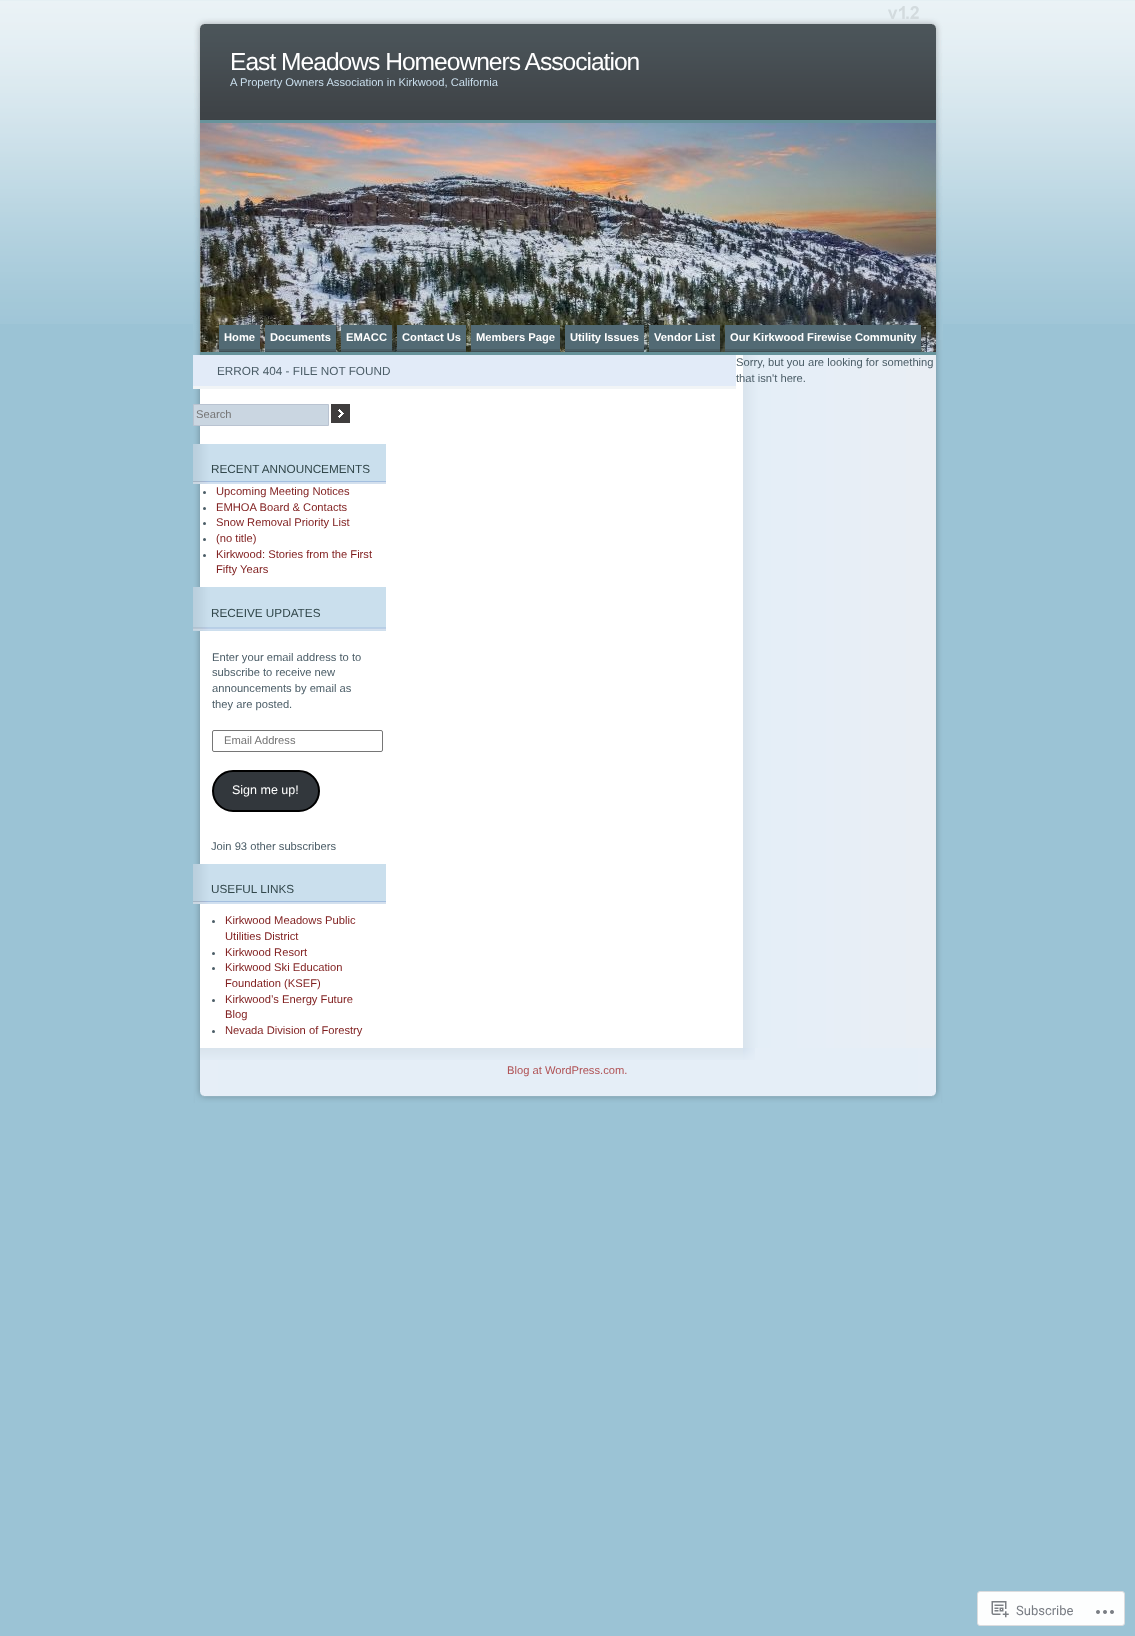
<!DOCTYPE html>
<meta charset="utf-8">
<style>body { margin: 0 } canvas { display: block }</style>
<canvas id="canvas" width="1135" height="1636"></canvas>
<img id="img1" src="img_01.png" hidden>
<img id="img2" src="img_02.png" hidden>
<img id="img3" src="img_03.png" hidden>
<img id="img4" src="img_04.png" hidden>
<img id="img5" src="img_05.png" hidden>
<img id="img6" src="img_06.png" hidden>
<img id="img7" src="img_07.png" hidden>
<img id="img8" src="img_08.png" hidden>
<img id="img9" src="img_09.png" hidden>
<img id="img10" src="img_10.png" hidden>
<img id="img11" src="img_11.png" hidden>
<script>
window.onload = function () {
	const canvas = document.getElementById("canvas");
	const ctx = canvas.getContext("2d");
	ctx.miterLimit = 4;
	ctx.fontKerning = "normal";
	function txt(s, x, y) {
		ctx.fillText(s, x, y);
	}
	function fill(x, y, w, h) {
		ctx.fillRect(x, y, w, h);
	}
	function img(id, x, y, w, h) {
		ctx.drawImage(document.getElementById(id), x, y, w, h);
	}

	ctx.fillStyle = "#9BC3D5";
	fill(0, 0, 1135, 1636);
	img("img1", 0, 0, 1135, 324);
	img("img2", 193, 350, 750, 753);
	img("img3", 193, 0, 750, 350);
	img("img4", 200, 123, 736, 229);
	ctx.fillStyle = "#67939B";
	fill(200, 120, 736, 3);
	fill(200, 352, 736, 3);
	ctx.fillStyle = "#414E53";
	fill(219, 351, 41, 1);
	ctx.fillStyle = "#526A74";
	fill(219, 325, 41, 24);
	ctx.fillStyle = "#4A5E65";
	fill(219, 349, 41, 2);
	ctx.fillStyle = "#414E53";
	fill(265, 351, 71, 1);
	ctx.fillStyle = "#526A74";
	fill(265, 325, 71, 24);
	ctx.fillStyle = "#4A5E65";
	fill(265, 349, 71, 2);
	ctx.fillStyle = "#414E53";
	fill(341, 351, 51, 1);
	ctx.fillStyle = "#526A74";
	fill(341, 325, 51, 24);
	ctx.fillStyle = "#4A5E65";
	fill(341, 349, 51, 2);
	ctx.fillStyle = "#414E53";
	fill(397, 351, 69, 1);
	ctx.fillStyle = "#526A74";
	fill(397, 325, 69, 24);
	ctx.fillStyle = "#4A5E65";
	fill(397, 349, 69, 2);
	ctx.fillStyle = "#414E53";
	fill(471, 351, 89, 1);
	ctx.fillStyle = "#526A74";
	fill(471, 325, 89, 24);
	ctx.fillStyle = "#4A5E65";
	fill(471, 349, 89, 2);
	ctx.fillStyle = "#414E53";
	fill(565, 351, 79, 1);
	ctx.fillStyle = "#526A74";
	fill(565, 325, 79, 24);
	ctx.fillStyle = "#4A5E65";
	fill(565, 349, 79, 2);
	ctx.fillStyle = "#414E53";
	fill(649, 351, 71, 1);
	ctx.fillStyle = "#526A74";
	fill(649, 325, 71, 24);
	ctx.fillStyle = "#4A5E65";
	fill(649, 349, 71, 2);
	ctx.fillStyle = "#414E53";
	fill(725, 351, 196, 1);
	ctx.fillStyle = "#526A74";
	fill(725, 325, 196, 24);
	ctx.fillStyle = "#4A5E65";
	fill(725, 349, 196, 2);
	ctx.fillStyle = "#CAD6E1";
	ctx.beginPath();
	ctx.rect(193.5, 404.5, 135, 21);
	ctx.fill();
	ctx.strokeStyle = "#B9C3D1";
	ctx.stroke();
	img("img5", 331, 404, 19, 19);
	ctx.fillStyle = "#E2EBF8";
	fill(193, 355, 543, 31);
	ctx.fillStyle = "#F1F4F6";
	fill(193, 386, 543, 3);
	img("img6", 193, 444, 193, 40);
	ctx.fillStyle = "#4B5D67";
	ctx.beginPath();
	ctx.arc(204.5, 492.5, 1.5, 0, Math.PI * 2);
	ctx.fill();
	ctx.beginPath();
	ctx.arc(204.5, 508.5, 1.5, 0, Math.PI * 2);
	ctx.fill();
	ctx.beginPath();
	ctx.arc(204.5, 523.5, 1.5, 0, Math.PI * 2);
	ctx.fill();
	ctx.beginPath();
	ctx.arc(204.5, 539.5, 1.5, 0, Math.PI * 2);
	ctx.fill();
	ctx.beginPath();
	ctx.arc(204.5, 555.5, 1.5, 0, Math.PI * 2);
	ctx.fill();
	img("img7", 193, 587, 193, 44);
	ctx.beginPath();
	ctx.roundRect(212.5, 730.5, 170, 21, 1.5);
	ctx.strokeStyle = "#767676";
	ctx.stroke();
	ctx.fillStyle = "#32373C";
	ctx.beginPath();
	ctx.roundRect(213, 771, 106, 40, 20);
	ctx.fill();
	ctx.strokeStyle = "#000000";
	ctx.lineWidth = 2;
	ctx.stroke();
	img("img6", 193, 864, 193, 40);
	ctx.fillStyle = "#4B5D67";
	ctx.beginPath();
	ctx.arc(213.5, 921.5, 1.5, 0, Math.PI * 2);
	ctx.fill();
	ctx.beginPath();
	ctx.arc(213.5, 953.5, 1.5, 0, Math.PI * 2);
	ctx.fill();
	ctx.beginPath();
	ctx.arc(213.5, 968.5, 1.5, 0, Math.PI * 2);
	ctx.fill();
	ctx.beginPath();
	ctx.arc(213.5, 1000.5, 1.5, 0, Math.PI * 2);
	ctx.fill();
	ctx.beginPath();
	ctx.arc(213.5, 1031.5, 1.5, 0, Math.PI * 2);
	ctx.fill();
	img("img8", 195, 1048, 746, 55);
	img("img9", 200, 1048, 555, 12);
	ctx.fillStyle = "#FDFEFE";
	ctx.beginPath();
	ctx.roundRect(977.5, 1591.5, 147, 34, 2.5);
	ctx.fill();
	ctx.strokeStyle = "#DBDCDE";
	ctx.lineWidth = 1;
	ctx.stroke();
	img("img10", 991, 1601, 18, 17);
	img("img11", 1096, 1610, 18, 4);
	ctx.letterSpacing = "-1px";
	ctx.font = "24.6px Liberation Sans";
	ctx.fillStyle = "#FFFFFF";
	txt("East Meadows Homeowners Association", 230, 70);
	ctx.letterSpacing = "0px";
	ctx.font = "11.2px Liberation Sans";
	ctx.fillStyle = "#CADFED";
	txt("A Property Owners Association in Kirkwood, California", 230, 86);
	ctx.font = "bold 11.2px Liberation Sans";
	ctx.fillStyle = "#FFFFFF";
	txt("Home", 224, 341);
	txt("Documents", 270, 341);
	txt("EMACC", 346, 341);
	txt("Contact Us", 402, 341);
	txt("Members Page", 476, 341);
	txt("Utility Issues", 570, 341);
	txt("Vendor List", 654, 341);
	txt("Our Kirkwood Firewise Community", 730, 341);
	ctx.font = "11.2px Liberation Sans";
	ctx.fillStyle = "#4B5D67";
	txt("Sorry, but you are looking for something", 736, 366);
	txt("that isn't here.", 736, 382);
	ctx.fillStyle = "#757575";
	txt("Search", 196, 418);
	ctx.font = "11.75px Liberation Sans";
	ctx.fillStyle = "#4B5D67";
	txt("ERROR 404 - FILE NOT FOUND", 217, 375);
	ctx.fillStyle = "#32474B";
	txt("RECENT ANNOUNCEMENTS", 211, 473);
	ctx.font = "11.2px Liberation Sans";
	ctx.fillStyle = "#7F1D1D";
	txt("Upcoming Meeting Notices", 216, 495);
	txt("EMHOA Board & Contacts", 216, 511);
	txt("Snow Removal Priority List", 216, 526);
	txt("(no title)", 216, 542);
	txt("Kirkwood: Stories from the First", 216, 558);
	txt("Fifty Years", 216, 573);
	ctx.font = "11.75px Liberation Sans";
	ctx.fillStyle = "#32474B";
	txt("RECEIVE UPDATES", 211, 617);
	ctx.font = "11.2px Liberation Sans";
	ctx.fillStyle = "#4B5D67";
	txt("Enter your email address to to", 212, 661);
	txt("subscribe to receive new", 212, 676);
	txt("announcements by email as", 212, 692);
	txt("they are posted.", 212, 708);
	ctx.fillStyle = "#757575";
	txt("Email Address", 224, 744);
	ctx.font = "12.5px Liberation Sans";
	ctx.fillStyle = "#FFFFFF";
	txt("Sign me up!", 232, 794);
	ctx.font = "11.2px Liberation Sans";
	ctx.fillStyle = "#4B5D67";
	txt("Join 93 other subscribers", 211, 850);
	ctx.font = "11.75px Liberation Sans";
	ctx.fillStyle = "#32474B";
	txt("USEFUL LINKS", 211, 893);
	ctx.font = "11.2px Liberation Sans";
	ctx.fillStyle = "#7F1D1D";
	txt("Kirkwood Meadows Public", 225, 924);
	txt("Utilities District", 225, 940);
	txt("Kirkwood Resort", 225, 956);
	txt("Kirkwood Ski Education", 225, 971);
	txt("Foundation (KSEF)", 225, 987);
	txt("Kirkwood’s Energy Future", 225, 1003);
	txt("Blog", 225, 1018);
	txt("Nevada Division of Forestry", 225, 1034);
	ctx.fillStyle = "#B05255";
	txt("Blog at WordPress.com.", 507, 1074);
	ctx.font = "13px Roboto";
	ctx.fillStyle = "#797D84";
	txt("Subscribe", 1016, 1615);
};
</script>
